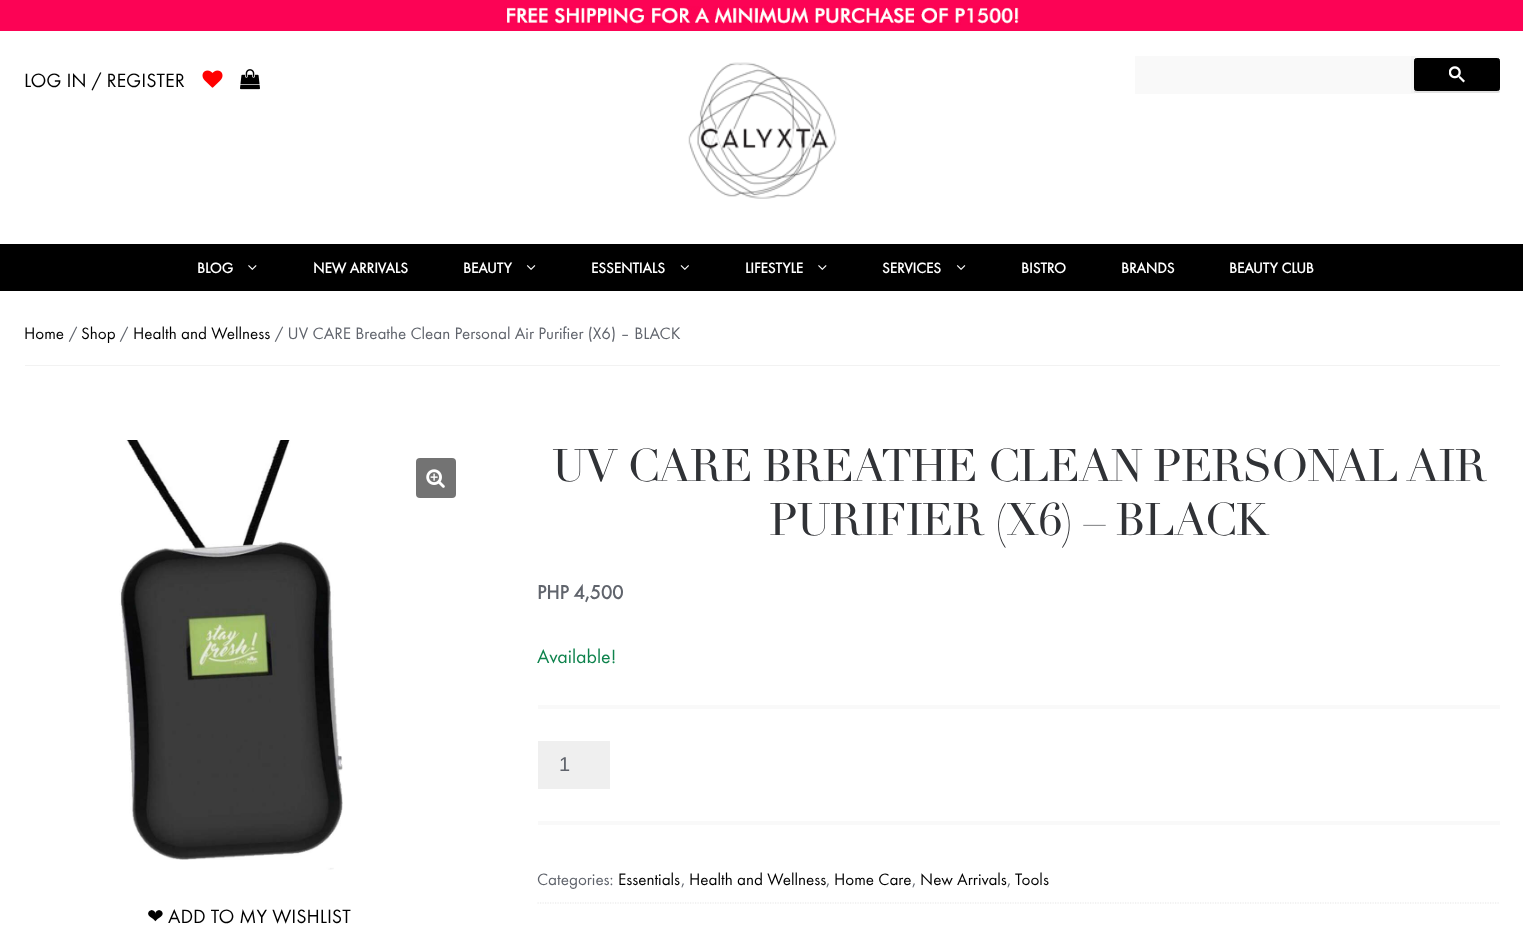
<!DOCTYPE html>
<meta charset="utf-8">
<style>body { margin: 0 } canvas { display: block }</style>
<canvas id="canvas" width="1523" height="930"></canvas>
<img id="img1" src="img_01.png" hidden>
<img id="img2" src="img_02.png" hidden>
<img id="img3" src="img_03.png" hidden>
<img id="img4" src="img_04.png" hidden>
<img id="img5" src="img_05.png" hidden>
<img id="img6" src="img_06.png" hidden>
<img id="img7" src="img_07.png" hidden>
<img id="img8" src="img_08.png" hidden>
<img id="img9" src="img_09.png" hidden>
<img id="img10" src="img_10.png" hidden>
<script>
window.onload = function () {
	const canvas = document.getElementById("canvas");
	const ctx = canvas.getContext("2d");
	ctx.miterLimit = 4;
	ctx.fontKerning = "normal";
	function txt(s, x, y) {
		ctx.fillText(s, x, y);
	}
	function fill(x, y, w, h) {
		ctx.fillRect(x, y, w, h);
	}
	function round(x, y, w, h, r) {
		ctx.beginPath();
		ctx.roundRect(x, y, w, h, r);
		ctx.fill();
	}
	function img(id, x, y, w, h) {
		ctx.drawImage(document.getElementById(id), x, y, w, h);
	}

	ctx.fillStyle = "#FFFFFF";
	fill(0, 0, 1523, 930);
	img("img1", 0, 0, 1523, 31);
	ctx.fillStyle = "#FAFAFA";
	fill(1415, 56, 85, 37);
	img("img2", 202, 70, 21, 18);
	img("img3", 240, 69, 20, 21);
	img("img4", 688, 62, 149, 137);
	ctx.fillStyle = "#F9F9F9";
	fill(1135, 56, 280, 38);
	ctx.fillStyle = "#F4F4F4";
	fill(1411, 56, 4, 37);
	ctx.fillStyle = "rgba(0, 0, 0, 0.1)";
	ctx.filter = "blur(0.5px)";
	ctx.beginPath();
	ctx.roundRect(1414, 59, 86, 34, 2.5);
	ctx.fill();
	ctx.filter = "none";
	ctx.fillStyle = "#000000";
	ctx.beginPath();
	ctx.roundRect(1414.5, 58.5, 85, 32, 2);
	ctx.fill();
	ctx.strokeStyle = "#000000";
	ctx.stroke();
	img("img5", 1449, 66, 16, 17);
	fill(0, 244, 1523, 47);
	img("img6", 248, 265, 9, 5);
	img("img7", 526, 265, 10, 5);
	img("img8", 680, 265, 9, 5);
	img("img6", 818, 265, 9, 5);
	img("img7", 956, 265, 10, 5);
	ctx.fillStyle = "#F2F2F2";
	fill(25, 365, 1475, 1);
	ctx.fillStyle = "#F9F9F9";
	fill(538, 705, 962, 4);
	fill(538, 821, 962, 4);
	ctx.fillStyle = "#EFEFEF";
	fill(538, 741, 72, 48);
	ctx.beginPath();
	ctx.moveTo(537.5, 903);
	ctx.lineTo(1500, 903);
	ctx.strokeStyle = "#E6E6E6";
	ctx.lineWidth = 1.2;
	ctx.setLineDash([1.25, 1.25]);
	ctx.stroke();
	img("img9", 119, 440, 224, 430);
	ctx.fillStyle = "#737373";
	round(416, 458, 40, 40, 4);
	img("img10", 426, 469, 19, 19);
	ctx.font = "20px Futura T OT";
	ctx.fillStyle = "#000000";
	txt("LOG IN / REGISTER", 24, 87);
	ctx.font = "bold 15px Futura T OT";
	ctx.fillStyle = "#FFFFFF";
	txt("BLOG", 197, 273);
	txt("NEW ARRIVALS", 313, 273);
	txt("BEAUTY", 463, 273);
	txt("ESSENTIALS", 591, 273);
	txt("LIFESTYLE", 745, 273);
	txt("SERVICES", 882, 273);
	txt("BISTRO", 1021, 273);
	txt("BRANDS", 1121, 273);
	txt("BEAUTY CLUB", 1229, 273);
	ctx.font = "17.1px Futura T OT";
	ctx.fillStyle = "#000000";
	txt("Home", 24, 339);
	ctx.fillStyle = "#60646C";
	txt("/", 69, 339);
	ctx.fillStyle = "#000000";
	txt("Shop", 81, 339);
	ctx.fillStyle = "#60646C";
	txt("/", 120, 339);
	ctx.fillStyle = "#000000";
	txt("Health and Wellness", 133, 339);
	ctx.fillStyle = "#60646C";
	txt("/ UV CARE Breathe Clean Personal Air Purifier (X6) – BLACK", 275, 339);
	ctx.letterSpacing = "-1.25px";
	ctx.font = "44.9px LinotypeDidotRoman";
	ctx.fillStyle = "#303236";
	txt("UV CARE BREATHE CLEAN PERSONAL AIR", 552, 481);
	txt("PURIFIER (X6) – BLACK", 769, 535);
	ctx.letterSpacing = "0px";
	ctx.font = "bold 20px Futura T OT";
	ctx.fillStyle = "#60646C";
	txt("PHP 4,500", 537, 599);
	ctx.font = "20px Futura T OT";
	ctx.fillStyle = "#0F834D";
	txt("Available!", 537, 663);
	ctx.font = "20px Liberation Sans";
	ctx.fillStyle = "#60646C";
	txt("1", 559, 771);
	ctx.font = "17.1px Futura T OT";
	txt("Categories:", 537, 885);
	ctx.fillStyle = "#000000";
	txt("Essentials", 618, 885);
	ctx.fillStyle = "#60646C";
	txt(",", 681, 885);
	ctx.fillStyle = "#000000";
	txt("Health and Wellness", 689, 885);
	ctx.fillStyle = "#60646C";
	txt(",", 826, 885);
	ctx.fillStyle = "#000000";
	txt("Home Care", 834, 885);
	ctx.fillStyle = "#60646C";
	txt(",", 912, 885);
	ctx.fillStyle = "#000000";
	txt("New Arrivals", 920, 885);
	ctx.fillStyle = "#60646C";
	txt(",", 1007, 885);
	ctx.fillStyle = "#000000";
	txt("Tools", 1015, 885);
	ctx.font = "20px DejaVu Sans";
	txt("❤", 147, 923);
	ctx.font = "20px Futura T OT";
	txt("ADD TO MY WISHLIST", 168, 923);
};
</script>
